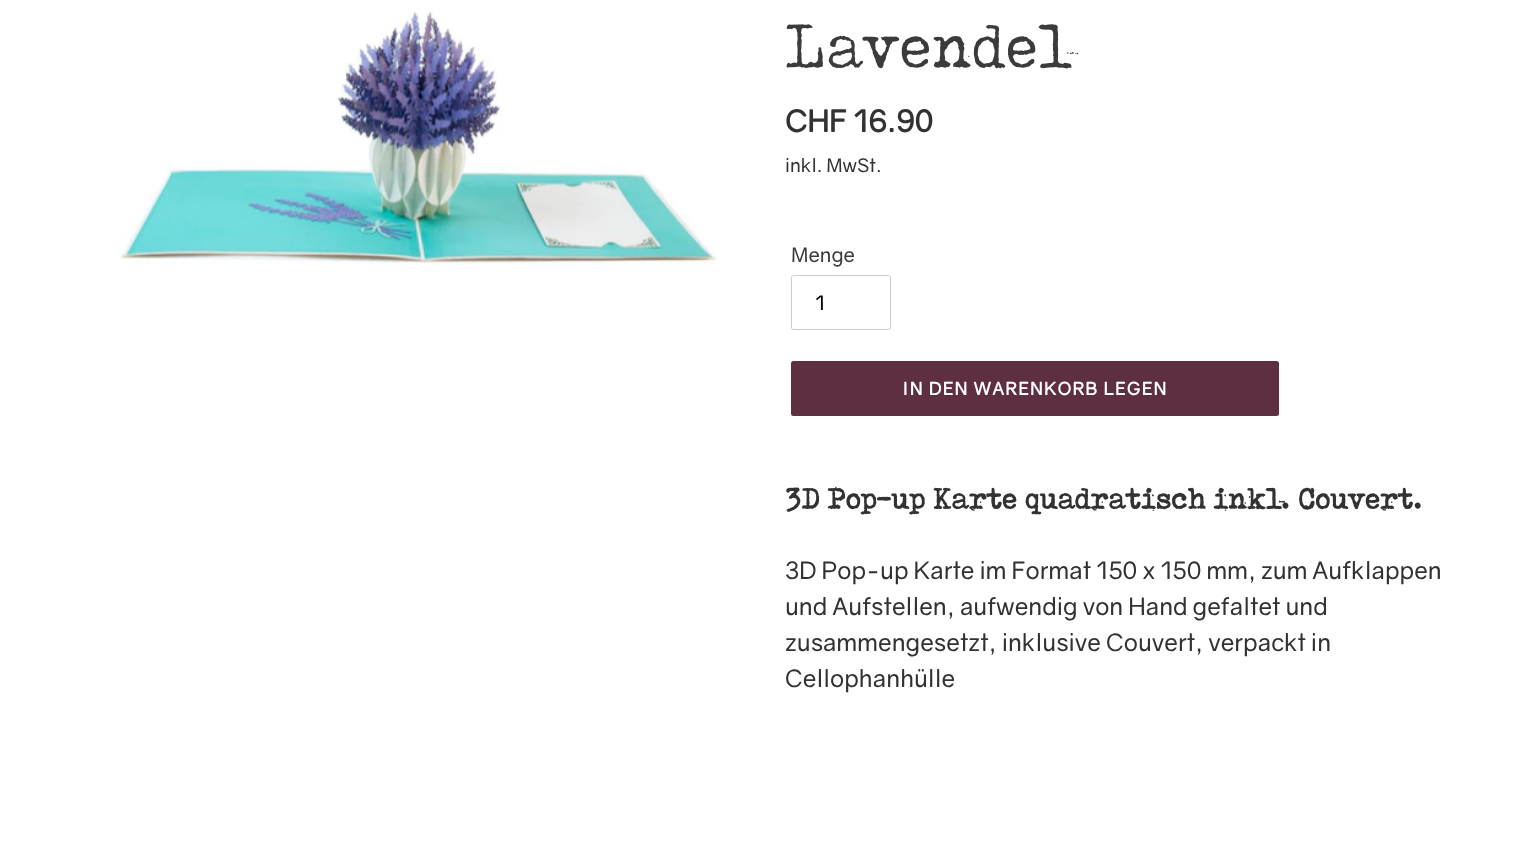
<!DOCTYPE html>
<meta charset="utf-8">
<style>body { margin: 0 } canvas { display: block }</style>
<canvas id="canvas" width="1532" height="859"></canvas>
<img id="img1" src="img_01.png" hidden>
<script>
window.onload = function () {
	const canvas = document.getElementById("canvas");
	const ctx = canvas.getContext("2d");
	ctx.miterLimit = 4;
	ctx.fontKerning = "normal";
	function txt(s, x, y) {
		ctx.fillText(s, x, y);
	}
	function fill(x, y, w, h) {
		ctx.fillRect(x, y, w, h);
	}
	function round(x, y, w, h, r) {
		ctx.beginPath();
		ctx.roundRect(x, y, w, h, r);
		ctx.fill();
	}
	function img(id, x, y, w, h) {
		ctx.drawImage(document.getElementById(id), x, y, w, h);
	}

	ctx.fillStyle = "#FFFFFF";
	fill(0, 0, 1532, 859);
	img("img1", 120, 11, 598, 254);
	ctx.beginPath();
	ctx.roundRect(791.5, 275.5, 99, 54, 2);
	ctx.strokeStyle = "#CCCCCC";
	ctx.stroke();
	ctx.fillStyle = "#5E2F41";
	round(791, 361, 488, 55, 2.5);
	ctx.font = "70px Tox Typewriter";
	ctx.fillStyle = "#3B3B3B";
	txt("Lavendel", 785, 68);
	ctx.font = "bold 30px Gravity";
	ctx.fillStyle = "#333232";
	txt("CHF 16.90", 785, 132);
	ctx.font = "18.75px Gravity";
	txt("inkl. MwSt.", 785, 172);
	ctx.font = "20px Gravity";
	ctx.fillStyle = "#3B3B3B";
	txt("Menge", 791, 262);
	ctx.fillStyle = "#000000";
	txt("1", 815, 310);
	ctx.letterSpacing = "1.4px";
	ctx.font = "bold 17.5px Gravity";
	ctx.fillStyle = "#FFFFFF";
	txt("IN DEN WARENKORB LEGEN", 902, 395);
	ctx.letterSpacing = "0px";
	ctx.font = "bold 32.5px Tox Typewriter";
	ctx.fillStyle = "#333232";
	txt("3D Pop-up Karte quadratisch inkl. Couvert.", 785, 509);
	ctx.font = "24px Gravity";
	txt("3D Pop-up Karte im Format 150 x 150 mm, zum Aufklappen", 785, 579);
	txt("und Aufstellen, aufwendig von Hand gefaltet und", 785, 615);
	txt("zusammengesetzt, inklusive Couvert, verpackt in", 785, 651);
	txt("Cellophanhülle", 785, 687);
};
</script>
